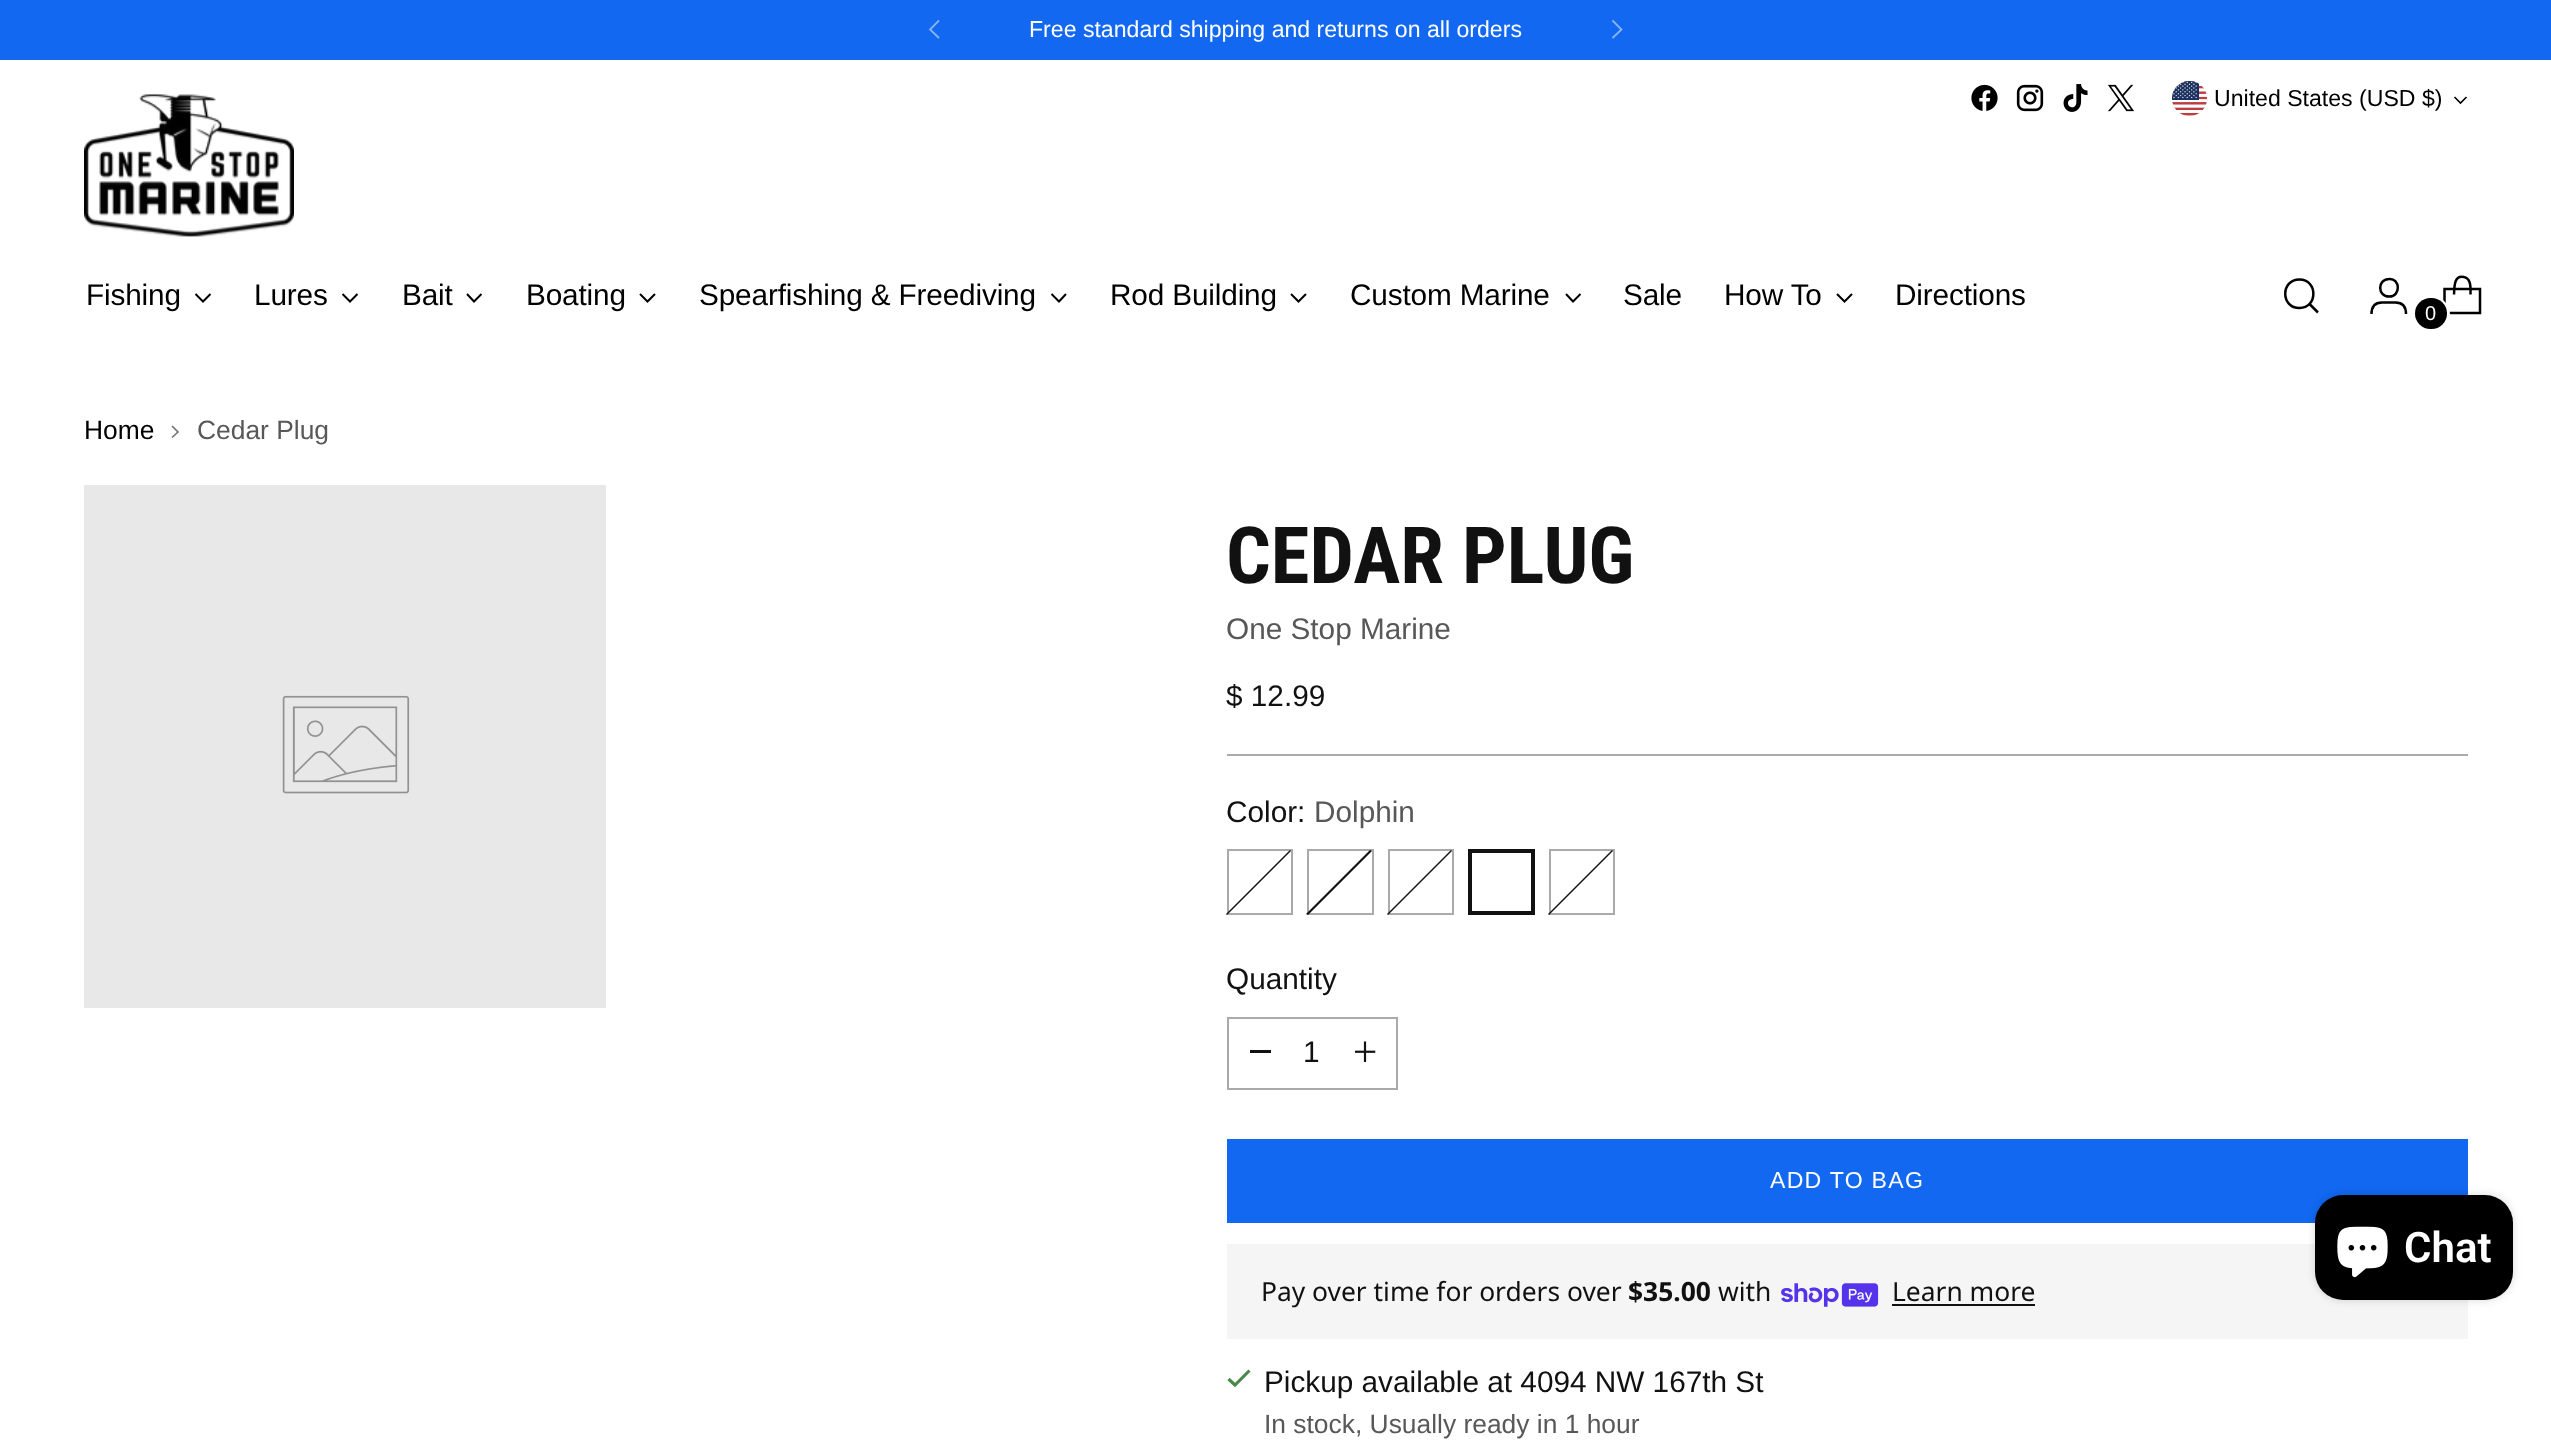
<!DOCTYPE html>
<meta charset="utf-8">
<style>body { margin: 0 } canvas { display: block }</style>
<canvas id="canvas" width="2551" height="1448"></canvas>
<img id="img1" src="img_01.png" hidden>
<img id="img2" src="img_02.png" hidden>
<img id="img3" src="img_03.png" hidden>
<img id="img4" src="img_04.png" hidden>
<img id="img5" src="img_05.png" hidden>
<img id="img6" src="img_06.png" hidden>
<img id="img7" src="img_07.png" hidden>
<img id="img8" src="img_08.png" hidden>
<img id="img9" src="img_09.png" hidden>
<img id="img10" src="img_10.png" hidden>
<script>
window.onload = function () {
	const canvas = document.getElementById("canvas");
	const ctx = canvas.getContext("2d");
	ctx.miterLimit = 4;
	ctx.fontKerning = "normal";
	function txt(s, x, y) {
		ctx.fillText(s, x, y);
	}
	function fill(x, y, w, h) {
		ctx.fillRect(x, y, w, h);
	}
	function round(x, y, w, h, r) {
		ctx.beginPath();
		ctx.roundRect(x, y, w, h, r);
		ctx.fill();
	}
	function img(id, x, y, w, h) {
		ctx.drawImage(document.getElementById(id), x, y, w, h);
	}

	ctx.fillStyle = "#FFFFFF";
	fill(0, 0, 2551, 1448);
	ctx.fillStyle = "#1268F1";
	fill(0, 0, 2551, 60);
	ctx.beginPath();
	ctx.moveTo(939, 20.5);
	ctx.lineTo(930, 29.5);
	ctx.lineTo(939, 38);
	ctx.strokeStyle = "#89B4F8";
	ctx.lineWidth = 1.8;
	ctx.stroke();
	ctx.beginPath();
	ctx.moveTo(1612.5, 38);
	ctx.lineTo(1621.5, 29.5);
	ctx.lineTo(1612.5, 20.5);
	ctx.stroke();
	img("img1", 84, 94, 210, 143);
	img("img2", 1971, 84, 27, 27);
	img("img3", 2016, 84, 28, 28);
	img("img4", 2063, 84, 25, 28);
	img("img5", 2108, 84, 26, 28);
	img("img6", 2172, 81, 35, 35);
	ctx.beginPath();
	ctx.moveTo(2454.5, 97);
	ctx.lineTo(2460.5, 103);
	ctx.lineTo(2466.5, 97);
	ctx.strokeStyle = "#000000";
	ctx.lineWidth = 1.6;
	ctx.stroke();
	ctx.beginPath();
	ctx.moveTo(195.5, 294);
	ctx.lineTo(203, 301.5);
	ctx.lineTo(210.5, 294);
	ctx.lineWidth = 2;
	ctx.stroke();
	ctx.beginPath();
	ctx.moveTo(342.5, 294);
	ctx.lineTo(350, 301.5);
	ctx.lineTo(357.5, 294);
	ctx.stroke();
	ctx.beginPath();
	ctx.moveTo(467, 294);
	ctx.lineTo(474, 301.5);
	ctx.lineTo(481.5, 294);
	ctx.stroke();
	ctx.beginPath();
	ctx.moveTo(640, 294);
	ctx.lineTo(647.5, 301.5);
	ctx.lineTo(655, 294);
	ctx.stroke();
	ctx.beginPath();
	ctx.moveTo(1051.5, 294);
	ctx.lineTo(1059, 301.5);
	ctx.lineTo(1066, 294);
	ctx.stroke();
	ctx.beginPath();
	ctx.moveTo(1291, 294);
	ctx.lineTo(1298.5, 301.5);
	ctx.lineTo(1306, 294);
	ctx.stroke();
	ctx.beginPath();
	ctx.moveTo(1566, 294);
	ctx.lineTo(1573, 301.5);
	ctx.lineTo(1580.5, 294);
	ctx.stroke();
	ctx.beginPath();
	ctx.moveTo(1837, 294);
	ctx.lineTo(1844.5, 301.5);
	ctx.lineTo(1852, 294);
	ctx.stroke();
	ctx.beginPath();
	ctx.moveTo(2299.5, 308);
	ctx.bezierCurveTo(2318, 308, 2318, 279.5, 2299.5, 279.5);
	ctx.bezierCurveTo(2280.5, 279.5, 2280.5, 308, 2299.5, 308);
	ctx.closePath();
	ctx.lineWidth = 2.5;
	ctx.lineCap = "round";
	ctx.stroke();
	ctx.beginPath();
	ctx.moveTo(2309.5, 304);
	ctx.lineTo(2318, 312.5);
	ctx.lineCap = "butt";
	ctx.stroke();
	ctx.beginPath();
	ctx.moveTo(2389, 296.5);
	ctx.bezierCurveTo(2401, 297, 2400.5, 278, 2389, 279);
	ctx.bezierCurveTo(2377, 279.5, 2377.5, 296.5, 2389, 296.5);
	ctx.closePath();
	ctx.moveTo(2371.5, 314);
	ctx.bezierCurveTo(2371.5, 307.5, 2374.5, 302.5, 2382, 302.5);
	ctx.lineTo(2395.5, 302.5);
	ctx.bezierCurveTo(2403, 302.5, 2406, 307.5, 2406, 314);
	ctx.stroke();
	ctx.beginPath();
	ctx.moveTo(2470.5, 294.5);
	ctx.bezierCurveTo(2470.5, 290.5, 2471, 286, 2469.5, 282);
	ctx.bezierCurveTo(2468.5, 279.5, 2466.5, 277.5, 2464, 277);
	ctx.bezierCurveTo(2453.5, 274.5, 2454.5, 288, 2454, 294.5);
	ctx.lineJoin = "bevel";
	ctx.stroke();
	ctx.beginPath();
	ctx.moveTo(2480, 313);
	ctx.lineTo(2480, 289);
	ctx.lineTo(2444.5, 289);
	ctx.lineTo(2444.5, 313);
	ctx.closePath();
	ctx.lineJoin = "miter";
	ctx.stroke();
	ctx.beginPath();
	ctx.arc(2431.5, 314.5, 17, 0, Math.PI * 2);
	ctx.strokeStyle = "#FFFFFF";
	ctx.lineWidth = 3;
	ctx.stroke();
	ctx.fillStyle = "#000000";
	round(2415, 298, 32, 31, 15.5);
	ctx.beginPath();
	ctx.moveTo(172, 437.5);
	ctx.lineTo(178, 432);
	ctx.lineTo(172, 426);
	ctx.strokeStyle = "#707070";
	ctx.lineWidth = 1.6;
	ctx.stroke();
	ctx.fillStyle = "#E8E8E8";
	fill(84, 485, 522, 523);
	img("img7", 282, 695, 128, 99);
	ctx.fillStyle = "#AAAAAA";
	fill(1227, 754, 1241, 2);
	ctx.strokeStyle = "#AAAAAA";
	ctx.lineWidth = 2;
	ctx.strokeRect(1228, 850, 64, 64);
	ctx.fillStyle = "#111111";
	ctx.beginPath();
	ctx.moveTo(1226, 914);
	ctx.lineTo(1290, 850);
	ctx.lineTo(1291, 851);
	ctx.lineTo(1227, 915);
	ctx.closePath();
	ctx.fill();
	ctx.strokeRect(1308, 850, 65, 64);
	ctx.beginPath();
	ctx.moveTo(1306, 914);
	ctx.lineTo(1370, 850);
	ctx.lineTo(1372, 851);
	ctx.lineTo(1308, 915);
	ctx.closePath();
	ctx.fill();
	ctx.strokeRect(1389, 850, 64, 64);
	ctx.beginPath();
	ctx.moveTo(1387, 914);
	ctx.lineTo(1451, 850);
	ctx.lineTo(1452, 851);
	ctx.lineTo(1388, 915);
	ctx.closePath();
	ctx.fill();
	ctx.strokeStyle = "#111111";
	ctx.lineWidth = 4;
	ctx.strokeRect(1470, 851, 63, 62);
	ctx.strokeStyle = "#AAAAAA";
	ctx.lineWidth = 2;
	ctx.strokeRect(1550, 850, 64, 64);
	ctx.beginPath();
	ctx.moveTo(1548, 914);
	ctx.lineTo(1612, 850);
	ctx.lineTo(1613, 851);
	ctx.lineTo(1549, 915);
	ctx.closePath();
	ctx.fill();
	ctx.strokeRect(1228, 1018, 169, 71);
	fill(1250, 1050, 21, 3);
	img("img8", 1355, 1041, 21, 21);
	ctx.save();
	ctx.beginPath();
	ctx.rect(1227, 1139, 1241, 84);
	ctx.clip();
	ctx.fillStyle = "#1268F1";
	ctx.beginPath();
	ctx.moveTo(1015, 1139);
	ctx.lineTo(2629, 1139);
	ctx.lineTo(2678, 1223);
	ctx.lineTo(1064, 1223);
	ctx.closePath();
	ctx.fill();
	ctx.restore();
	ctx.fillStyle = "#F5F5F5";
	fill(1227, 1244, 1241, 95);
	img("img9", 1781, 1283, 98, 24);
	ctx.fillStyle = "#111111";
	fill(1892, 1304, 143, 2);
	ctx.beginPath();
	ctx.moveTo(1228.5, 1379);
	ctx.lineTo(1235, 1385);
	ctx.lineTo(1249.5, 1370.5);
	ctx.strokeStyle = "#478947";
	ctx.lineWidth = 3.1;
	ctx.stroke();
	ctx.fillStyle = "rgba(0, 0, 0, 0.15)";
	ctx.filter = "blur(4.5px)";
	ctx.beginPath();
	ctx.roundRect(2315, 1195, 198, 105, 28);
	ctx.fill();
	ctx.filter = "none";
	ctx.fillStyle = "#000000";
	round(2315, 1195, 198, 105, 28);
	img("img10", 2337, 1226, 51, 52);
	ctx.font = "23.1px Liberation Sans";
	ctx.fillStyle = "#FFFFFF";
	txt("Free standard shipping and returns on all orders", 1029, 37);
	ctx.fillStyle = "#000000";
	txt("United States (USD", 2214, 106);
	txt("$)", 2422, 106);
	ctx.letterSpacing = "-0.15px";
	ctx.font = "29.75px Liberation Sans";
	txt("Fishing", 86, 305);
	txt("Lures", 254, 305);
	txt("Bait", 402, 305);
	txt("Boating", 526, 305);
	txt("Spearfishing & Freediving", 699, 305);
	txt("Rod Building", 1110, 305);
	txt("Custom Marine", 1350, 305);
	txt("Sale", 1623, 305);
	txt("How To", 1724, 305);
	txt("Directions", 1895, 305);
	ctx.letterSpacing = "0px";
	ctx.font = "20px Liberation Sans";
	ctx.fillStyle = "#FFFFFF";
	txt("0", 2425, 320);
	ctx.font = "26.4px Liberation Sans";
	ctx.fillStyle = "#000000";
	txt("Home", 84, 439);
	ctx.fillStyle = "#585858";
	txt("Cedar Plug", 197, 439);
	ctx.font = "bold 78.75px Roboto Condensed";
	ctx.fillStyle = "#111111";
	txt("CEDAR PLUG", 1226, 583);
	ctx.font = "29.75px Liberation Sans";
	ctx.fillStyle = "#585858";
	txt("One Stop Marine", 1226, 639);
	ctx.fillStyle = "#111111";
	txt("$ 12.99", 1226, 706);
	txt("Color:", 1226, 822);
	ctx.fillStyle = "#585858";
	txt("Dolphin", 1314, 822);
	ctx.fillStyle = "#111111";
	txt("Quantity", 1226, 989);
	txt("1", 1303, 1062);
	ctx.letterSpacing = "1.25px";
	ctx.font = "23.1px Liberation Sans";
	ctx.fillStyle = "#FFFFFF";
	txt("ADD TO BAG", 1770, 1188);
	ctx.letterSpacing = "0px";
	ctx.font = "26.4px Noto Sans";
	ctx.fillStyle = "#111111";
	txt("Pay over time for orders over", 1261, 1301);
	ctx.font = "bold 26.4px Noto Sans";
	txt("$35.00", 1628, 1301);
	ctx.font = "26.4px Noto Sans";
	txt("with", 1718, 1301);
	txt("Learn more", 1892, 1301);
	ctx.font = "29.75px Liberation Sans";
	txt("Pickup available at 4094 NW 167th St", 1264, 1392);
	ctx.font = "26.4px Liberation Sans";
	ctx.fillStyle = "#585858";
	txt("In stock, Usually ready in 1 hour", 1264, 1433);
	ctx.font = "600 42px Roboto";
	ctx.fillStyle = "#FFFFFF";
	txt("Chat", 2404, 1262);
};
</script>
